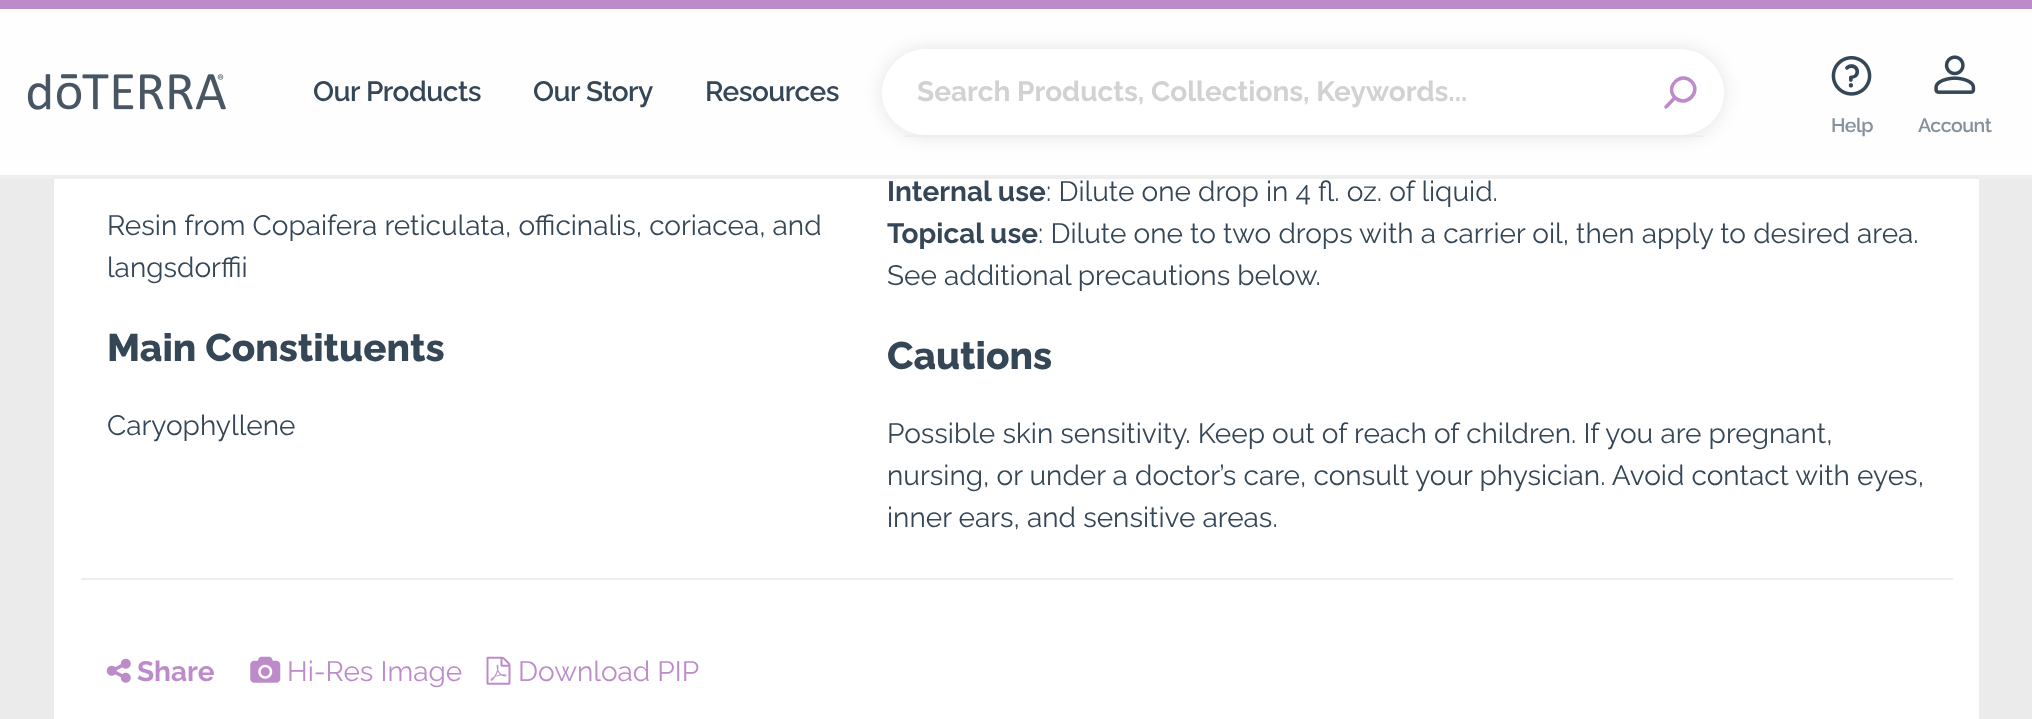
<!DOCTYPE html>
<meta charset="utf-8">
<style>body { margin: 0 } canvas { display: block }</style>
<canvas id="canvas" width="2032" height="719"></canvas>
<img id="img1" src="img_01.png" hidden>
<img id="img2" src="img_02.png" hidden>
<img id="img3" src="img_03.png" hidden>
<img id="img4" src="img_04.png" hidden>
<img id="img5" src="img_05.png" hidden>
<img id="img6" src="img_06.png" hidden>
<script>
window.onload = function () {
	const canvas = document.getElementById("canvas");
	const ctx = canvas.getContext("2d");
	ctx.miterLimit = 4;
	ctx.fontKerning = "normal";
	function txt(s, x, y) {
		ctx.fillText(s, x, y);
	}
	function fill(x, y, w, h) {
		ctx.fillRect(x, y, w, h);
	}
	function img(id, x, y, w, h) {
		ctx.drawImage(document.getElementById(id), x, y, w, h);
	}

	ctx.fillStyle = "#EBEBEB";
	fill(0, 0, 2032, 719);
	ctx.fillStyle = "#FEFEFE";
	fill(0, 9, 2032, 166);
	ctx.fillStyle = "#BD8BCA";
	fill(0, 0, 2032, 9);
	ctx.fillStyle = "#EEEEEE";
	fill(0, 175, 2032, 4);
	img("img1", 27, 74, 199, 36);
	ctx.fillStyle = "rgba(0, 0, 0, 0.1)";
	ctx.filter = "blur(9px)";
	ctx.beginPath();
	ctx.roundRect(882, 49, 842, 88, 44);
	ctx.fill();
	ctx.filter = "none";
	ctx.fillStyle = "#FFFFFF";
	ctx.beginPath();
	ctx.moveTo(926, 49);
	ctx.lineTo(1680, 49);
	ctx.bezierCurveTo(1704, 49, 1724, 69, 1724, 93);
	ctx.bezierCurveTo(1724, 116, 1704, 135, 1680, 135);
	ctx.lineTo(926, 135);
	ctx.bezierCurveTo(902, 135, 882, 116, 882, 93);
	ctx.bezierCurveTo(882, 69, 902, 49, 926, 49);
	ctx.closePath();
	ctx.fill();
	ctx.fillStyle = "#EEEEEE";
	fill(905, 135, 798, 2);
	ctx.beginPath();
	ctx.moveTo(1691.5, 81.5);
	ctx.bezierCurveTo(1702, 92, 1685.5, 108, 1675, 97.5);
	ctx.bezierCurveTo(1664.5, 87, 1680.5, 71, 1691.5, 81.5);
	ctx.closePath();
	ctx.strokeStyle = "#BD8BCA";
	ctx.lineWidth = 3.5;
	ctx.stroke();
	ctx.beginPath();
	ctx.moveTo(1674.5, 98);
	ctx.lineTo(1666, 107);
	ctx.lineCap = "round";
	ctx.stroke();
	img("img2", 1831, 56, 41, 40);
	img("img3", 1934, 55, 42, 39);
	ctx.fillStyle = "#FFFFFF";
	fill(54, 179, 1925, 540);
	ctx.fillStyle = "#EEEEEE";
	fill(81, 578, 1872, 2);
	img("img4", 106, 658, 25, 25);
	img("img5", 250, 656, 31, 27);
	img("img6", 486, 656, 25, 29);
	ctx.letterSpacing = "-0.5px";
	ctx.font = "600 28px Raleway";
	ctx.fillStyle = "#354657";
	txt("Our Products", 313, 101);
	txt("Our Story", 533, 101);
	txt("Resources", 705, 101);
	ctx.letterSpacing = "0px";
	ctx.font = "bold 28px Raleway";
	ctx.fillStyle = "#D1D2D3";
	txt("Search Products, Collections, Keywords...", 917, 101);
	ctx.letterSpacing = "-0.5px";
	ctx.font = "600 19.5px Raleway";
	ctx.fillStyle = "#84909B";
	txt("Help", 1831, 132);
	txt("Account", 1918, 132);
	ctx.letterSpacing = "0px";
	ctx.font = "28px Raleway";
	ctx.fillStyle = "#354657";
	txt("Resin from Copaifera reticulata, officinalis, coriacea, and", 107, 235);
	txt("langsdorffii", 107, 277);
	ctx.font = "800 38.5px Raleway";
	txt("Main Constituents", 107, 361);
	ctx.font = "28px Raleway";
	txt("Caryophyllene", 107, 435);
	ctx.font = "bold 28px Raleway";
	txt("Internal use", 887, 201);
	ctx.font = "28px Raleway";
	txt(": Dilute one drop in 4 fl. oz. of liquid.", 1046, 201);
	ctx.font = "bold 28px Raleway";
	txt("Topical use", 887, 243);
	ctx.font = "28px Raleway";
	txt(": Dilute one to two drops with a carrier oil, then apply to desired area.", 1038, 243);
	txt("See additional precautions below.", 887, 285);
	ctx.font = "800 38.5px Raleway";
	txt("Cautions", 887, 369);
	ctx.font = "28px Raleway";
	txt("Possible skin sensitivity. Keep out of reach of children. If you are pregnant,", 887, 443);
	txt("nursing, or under a doctor’s care, consult your physician. Avoid contact with eyes,", 887, 485);
	txt("inner ears, and sensitive areas.", 887, 527);
	ctx.font = "bold 28px Raleway";
	ctx.fillStyle = "#BD8BCA";
	txt("Share", 137, 681);
	ctx.font = "28px Raleway";
	txt("Hi-Res Image", 287, 681);
	txt("Download PIP", 518, 681);
};
</script>
